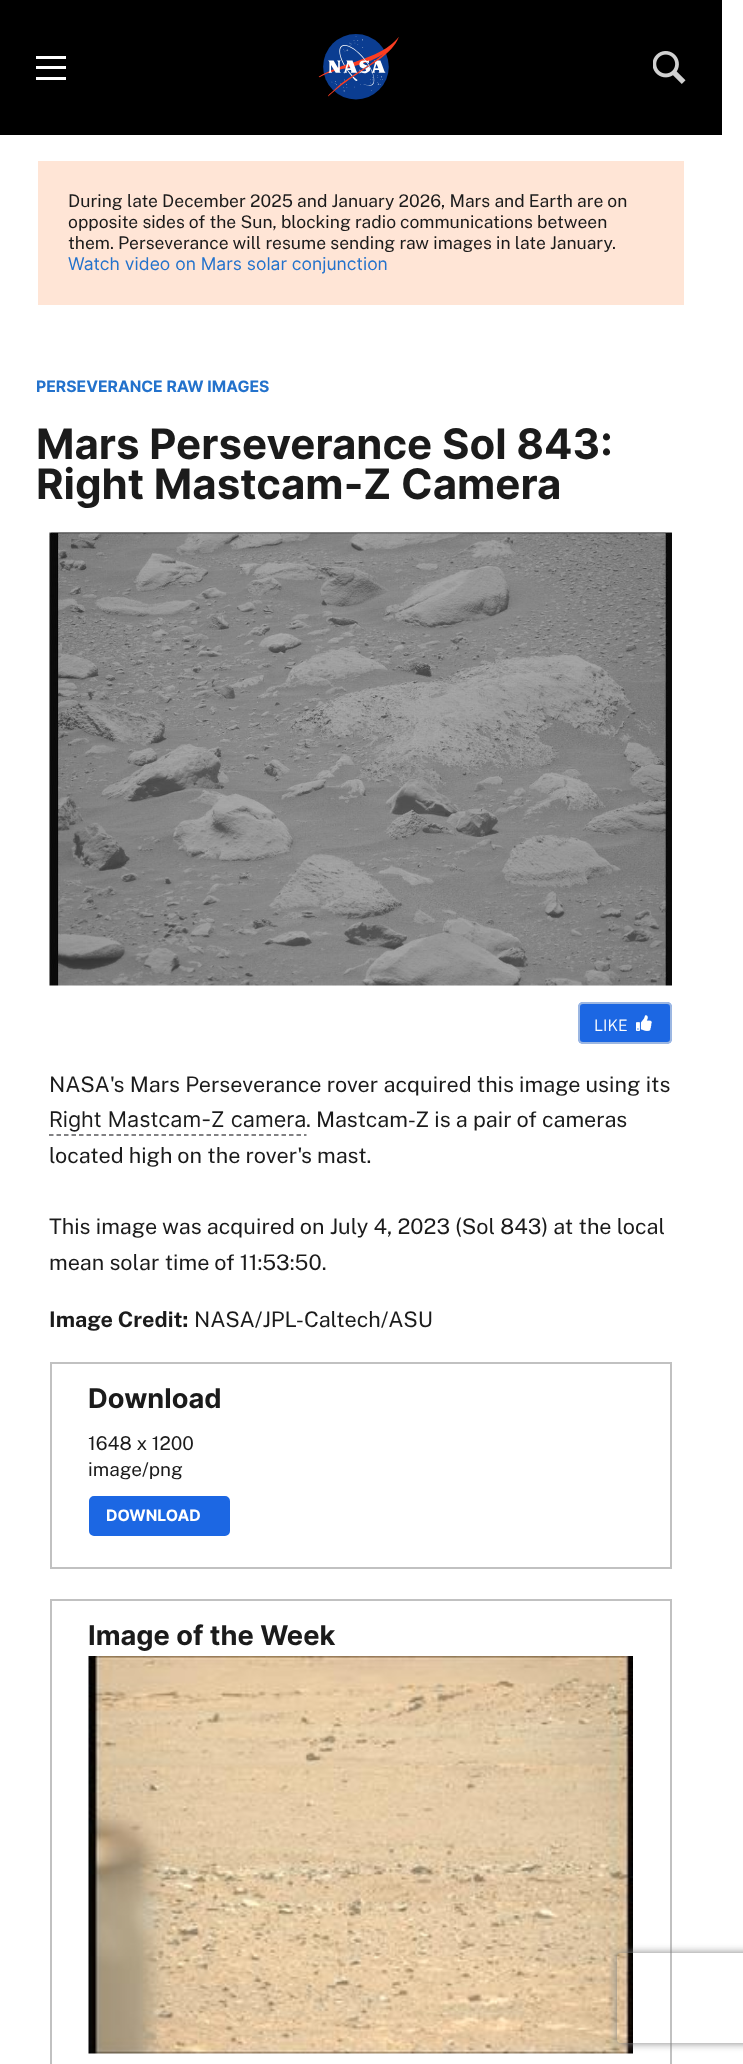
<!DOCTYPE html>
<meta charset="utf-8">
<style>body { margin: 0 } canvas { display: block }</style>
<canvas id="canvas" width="743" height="2064"></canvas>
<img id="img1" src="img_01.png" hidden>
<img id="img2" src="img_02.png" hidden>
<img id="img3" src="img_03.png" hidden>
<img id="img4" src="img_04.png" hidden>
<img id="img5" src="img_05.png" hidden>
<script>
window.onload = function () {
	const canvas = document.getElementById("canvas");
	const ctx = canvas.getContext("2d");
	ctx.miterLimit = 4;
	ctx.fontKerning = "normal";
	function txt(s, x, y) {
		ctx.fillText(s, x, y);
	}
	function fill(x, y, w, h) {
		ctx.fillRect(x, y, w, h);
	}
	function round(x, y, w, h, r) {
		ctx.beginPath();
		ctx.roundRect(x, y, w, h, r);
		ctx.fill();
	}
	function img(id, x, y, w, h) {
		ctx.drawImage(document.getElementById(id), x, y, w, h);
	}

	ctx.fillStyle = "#FFFFFF";
	fill(0, 0, 743, 2064);
	ctx.fillStyle = "#000000";
	fill(0, 0, 722, 135);
	ctx.fillStyle = "#FFFFFF";
	fill(36, 56, 30, 3);
	fill(36, 66, 30, 3);
	fill(36, 77, 30, 3);
	img("img1", 318, 34, 81, 66);
	img("img2", 653, 51, 33, 33);
	ctx.fillStyle = "#FFE5D6";
	fill(38, 161, 646, 144);
	img("img3", 49, 532, 623, 454);
	ctx.fillStyle = "#1C67E3";
	round(578, 1002, 94, 42, 5);
	ctx.beginPath();
	ctx.roundRect(579, 1003, 92, 40, 4);
	ctx.strokeStyle = "rgba(226, 226, 226, 0.65)";
	ctx.lineWidth = 2;
	ctx.stroke();
	img("img4", 636, 1015, 16, 16);
	ctx.beginPath();
	ctx.moveTo(49, 1135);
	ctx.lineTo(306.5, 1135);
	ctx.strokeStyle = "#58585B";
	ctx.lineWidth = 1.5;
	ctx.setLineDash([4.5, 3]);
	ctx.stroke();
	ctx.strokeStyle = "#C1C1C1";
	ctx.lineWidth = 2;
	ctx.setLineDash([]);
	ctx.strokeRect(51, 1363, 620, 205);
	ctx.beginPath();
	ctx.roundRect(90.5, 1497.5, 138, 37, 3.5);
	ctx.fill();
	ctx.strokeStyle = "#1C67E3";
	ctx.lineWidth = 3;
	ctx.stroke();
	ctx.strokeStyle = "#C1C1C1";
	ctx.lineWidth = 2;
	ctx.strokeRect(51, 1600, 620, 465);
	img("img5", 88, 1656, 545, 398);
	ctx.save();
	ctx.beginPath();
	ctx.moveTo(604, 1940);
	ctx.lineTo(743, 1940);
	ctx.lineTo(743, 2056);
	ctx.lineTo(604, 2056);
	ctx.closePath();
	ctx.moveTo(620, 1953);
	ctx.lineTo(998, 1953);
	ctx.bezierCurveTo(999.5, 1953, 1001, 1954.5, 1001, 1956);
	ctx.lineTo(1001, 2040);
	ctx.bezierCurveTo(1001, 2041.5, 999.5, 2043, 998, 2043);
	ctx.lineTo(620, 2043);
	ctx.bezierCurveTo(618.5, 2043, 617, 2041.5, 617, 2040);
	ctx.lineTo(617, 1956);
	ctx.bezierCurveTo(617, 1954.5, 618.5, 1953, 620, 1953);
	ctx.closePath();
	ctx.clip("evenodd");
	ctx.fillStyle = "#808080";
	ctx.filter = "blur(4px)";
	ctx.beginPath();
	ctx.roundRect(617, 1953, 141, 90, 3);
	ctx.fill();
	ctx.filter = "none";
	ctx.restore();
	ctx.font = "17.5px Public Sans";
	ctx.fillStyle = "#1B1B1B";
	txt("During late December 2025 and January 2026, Mars and Earth are on", 68, 207);
	txt("opposite sides of the Sun, blocking radio communications between", 68, 228);
	txt("them. Perseverance will resume sending raw images in late January.", 68, 249);
	ctx.font = "17.5px Inter";
	ctx.fillStyle = "#2372CC";
	txt("Watch video on Mars solar conjunction", 68, 270);
	ctx.font = "bold 15.75px Inter";
	txt("PERSEVERANCE RAW IMAGES", 36, 392);
	ctx.font = "bold 42px Inter";
	ctx.fillStyle = "#1B1B1B";
	txt("Mars Perseverance Sol 843:", 36, 459);
	txt("Right Mastcam-Z Camera", 36, 499);
	ctx.font = "300 15.75px Public Sans";
	ctx.fillStyle = "#FFFFFF";
	txt("LIKE", 594, 1031);
	ctx.font = "21.6px Public Sans";
	ctx.fillStyle = "#1B1B1B";
	txt("NASA's Mars Perseverance rover acquired this image using its", 49, 1092);
	ctx.font = "21.6px Inter";
	txt("Right Mastcam-Z camera", 49, 1127);
	ctx.font = "21.6px Public Sans";
	txt(". Mastcam-Z is a pair of cameras", 306, 1127);
	txt("located high on the rover's mast.", 49, 1163);
	txt("This image was acquired on July 4, 2023 (Sol 843) at the local", 49, 1234);
	txt("mean solar time of 11:53:50.", 49, 1270);
	ctx.font = "bold 21.6px Public Sans";
	txt("Image Credit:", 49, 1327);
	ctx.font = "21.6px Public Sans";
	txt("NASA/JPL-Caltech/ASU", 194, 1327);
	ctx.font = "bold 27.25px Inter";
	txt("Download", 88, 1408);
	ctx.font = "19px Public Sans";
	txt("1648 x 1200", 88, 1450);
	txt("image/png", 88, 1476);
	ctx.font = "bold 15.75px Inter";
	ctx.fillStyle = "#FFFFFF";
	txt("DOWNLOAD", 106, 1521);
	ctx.font = "bold 27.25px Inter";
	ctx.fillStyle = "#1B1B1B";
	txt("Image of the Week", 88, 1645);
};
</script>
